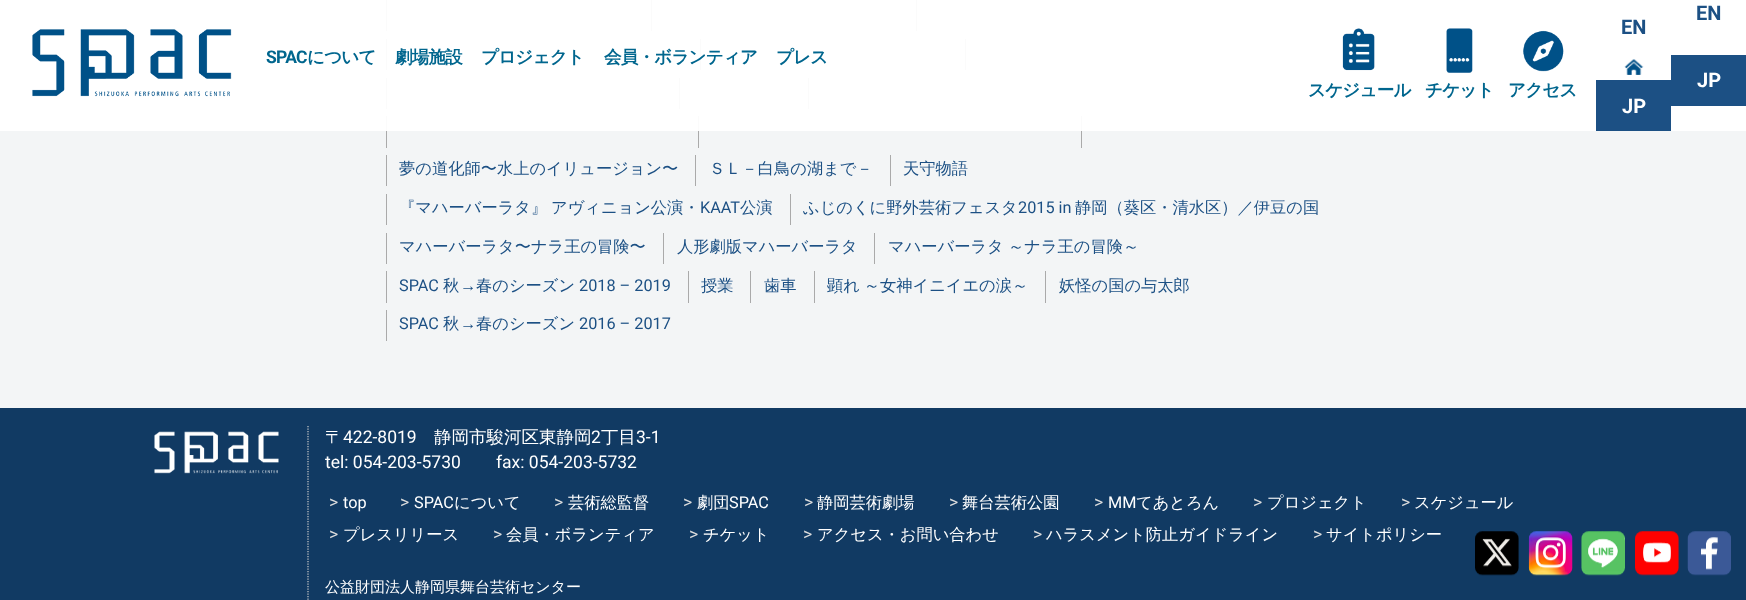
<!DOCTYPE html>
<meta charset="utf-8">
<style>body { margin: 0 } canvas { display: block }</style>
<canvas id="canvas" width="1746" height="600"></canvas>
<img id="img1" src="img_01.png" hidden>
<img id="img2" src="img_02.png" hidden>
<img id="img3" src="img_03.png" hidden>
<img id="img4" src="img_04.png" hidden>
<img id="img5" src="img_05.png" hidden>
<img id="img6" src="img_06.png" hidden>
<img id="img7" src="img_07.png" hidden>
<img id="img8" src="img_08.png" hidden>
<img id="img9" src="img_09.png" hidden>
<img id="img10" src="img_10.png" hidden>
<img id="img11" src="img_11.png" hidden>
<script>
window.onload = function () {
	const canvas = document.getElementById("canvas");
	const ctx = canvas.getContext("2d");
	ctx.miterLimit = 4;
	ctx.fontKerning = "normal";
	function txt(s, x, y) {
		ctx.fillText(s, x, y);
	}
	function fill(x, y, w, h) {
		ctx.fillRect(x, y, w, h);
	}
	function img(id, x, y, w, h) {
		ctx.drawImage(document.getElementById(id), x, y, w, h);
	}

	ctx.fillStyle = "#F3F5F6";
	fill(0, 0, 1746, 600);
	ctx.fillStyle = "#AAAAAA";
	fill(386, 0, 1, 31);
	fill(651, 0, 1, 31);
	fill(916, 0, 1, 31);
	fill(386, 39, 1, 31);
	fill(700, 39, 1, 31);
	fill(965, 39, 1, 31);
	fill(386, 78, 1, 31);
	fill(679, 78, 1, 31);
	fill(808, 78, 1, 31);
	fill(386, 116, 1, 32);
	fill(698, 116, 1, 32);
	fill(1081, 116, 1, 32);
	ctx.fillStyle = "rgba(255, 255, 255, 0.95)";
	fill(0, 0, 1746, 131);
	img("img1", 32, 29, 200, 68);
	img("img2", 1624, 59, 20, 16);
	ctx.fillStyle = "#1C5084";
	fill(1596, 80, 75, 51);
	fill(1671, 55, 75, 51);
	img("img3", 1342, 28, 33, 43);
	img("img4", 1446, 28, 27, 45);
	img("img5", 1523, 30, 41, 42);
	ctx.fillStyle = "#AAAAAA";
	fill(386, 155, 1, 31);
	fill(695, 155, 1, 31);
	fill(890, 155, 1, 31);
	fill(386, 194, 1, 31);
	fill(790, 194, 1, 31);
	fill(386, 233, 1, 31);
	fill(663, 233, 1, 31);
	fill(874, 233, 1, 31);
	fill(386, 271, 1, 32);
	fill(688, 271, 1, 32);
	fill(750, 271, 1, 32);
	fill(814, 271, 1, 32);
	fill(1045, 271, 1, 32);
	fill(386, 310, 1, 31);
	ctx.fillStyle = "#113A63";
	fill(0, 408, 1746, 192);
	img("img6", 154, 431, 125, 43);
	ctx.beginPath();
	ctx.moveTo(308, 426);
	ctx.lineTo(308, 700);
	ctx.strokeStyle = "#CCCCCC";
	ctx.lineWidth = 1.2;
	ctx.setLineDash([1.25, 1.25]);
	ctx.stroke();
	img("img7", 1475, 531, 44, 45);
	img("img8", 1528, 531, 45, 45);
	img("img9", 1581, 531, 44, 45);
	img("img10", 1635, 531, 44, 45);
	img("img11", 1687, 531, 44, 45);
	ctx.letterSpacing = "-0.75px";
	ctx.font = "bold 17.5px Roboto";
	ctx.fillStyle = "#00668E";
	txt("SPAC", 266, 63);
	ctx.font = "bold 17.5px WenQuanYi Zen Hei";
	txt("について", 307, 63);
	txt("劇場施設", 395, 63);
	txt("プロジェクト", 481, 63);
	txt("会員・ボランティア", 604, 63);
	txt("プレス", 776, 63);
	ctx.letterSpacing = "0px";
	ctx.font = "bold 20px Roboto";
	ctx.fillStyle = "#1C5084";
	txt("EN", 1621, 34);
	ctx.fillStyle = "#FFFFFF";
	txt("JP", 1622, 113);
	ctx.fillStyle = "#1C5084";
	txt("EN", 1696, 20);
	ctx.fillStyle = "#FFFFFF";
	txt("JP", 1697, 87);
	ctx.letterSpacing = "-0.75px";
	ctx.font = "bold 17.5px WenQuanYi Zen Hei";
	ctx.fillStyle = "#00668E";
	txt("スケジュール", 1308, 96);
	txt("チケット", 1425, 96);
	txt("アクセス", 1508, 96);
	ctx.letterSpacing = "0px";
	ctx.font = "500 16.25px WenQuanYi Zen Hei";
	ctx.fillStyle = "#1C5084";
	txt("夢の道化師〜水上のイリュージョン〜", 399, 174);
	txt("ＳＬ－白鳥の湖まで－", 709, 174);
	txt("天守物語", 903, 174);
	ctx.wordSpacing = "-1px";
	txt("『マハーバーラタ』 アヴィニョン公演・", 399, 213);
	ctx.wordSpacing = "0px";
	ctx.font = "16.25px Roboto";
	txt("KAAT", 700, 213);
	ctx.font = "500 16.25px WenQuanYi Zen Hei";
	txt("公演", 740, 213);
	txt("ふじのくに野外芸術フェスタ", 803, 213);
	ctx.font = "16.25px Roboto";
	txt("2015 in", 1018, 213);
	ctx.font = "500 16.25px WenQuanYi Zen Hei";
	txt("静岡（葵区・清水区）／伊豆の国", 1075, 213);
	txt("マハーバーラタ〜ナラ王の冒険〜", 399, 252);
	txt("人形劇版マハーバーラタ", 677, 252);
	txt("マハーバーラタ", 888, 252);
	txt("～ナラ王の冒険～", 1008, 252);
	ctx.font = "16.25px Roboto";
	txt("SPAC", 399, 291);
	ctx.font = "500 16.25px WenQuanYi Zen Hei";
	txt("秋", 443, 291);
	ctx.font = "16.25px Liberation Sans";
	txt("→", 460, 291);
	ctx.font = "500 16.25px WenQuanYi Zen Hei";
	txt("春のシーズン", 476, 291);
	ctx.font = "16.25px Roboto";
	txt("2018 – 2019", 579, 291);
	ctx.font = "500 16.25px WenQuanYi Zen Hei";
	txt("授業", 701, 291);
	txt("歯車", 764, 291);
	ctx.wordSpacing = "-1px";
	txt("顕れ ～女神イニイエの涙～", 827, 291);
	ctx.wordSpacing = "0px";
	txt("妖怪の国の与太郎", 1059, 291);
	ctx.font = "16.25px Roboto";
	txt("SPAC", 399, 329);
	ctx.font = "500 16.25px WenQuanYi Zen Hei";
	txt("秋", 443, 329);
	ctx.font = "16.25px Liberation Sans";
	txt("→", 460, 329);
	ctx.font = "500 16.25px WenQuanYi Zen Hei";
	txt("春のシーズン", 476, 329);
	ctx.font = "16.25px Roboto";
	txt("2016 – 2017", 579, 329);
	ctx.font = "500 17.5px WenQuanYi Zen Hei";
	ctx.fillStyle = "#FFFFFF";
	txt("〒", 325, 443);
	ctx.font = "17.5px Roboto";
	txt("422-8019", 343, 443);
	ctx.font = "500 17.5px WenQuanYi Zen Hei";
	txt("静岡市駿河区東静岡", 434, 443);
	ctx.font = "17.5px Roboto";
	txt("2", 591, 443);
	ctx.font = "500 17.5px WenQuanYi Zen Hei";
	txt("丁目", 601, 443);
	ctx.font = "17.5px Roboto";
	txt("3-1", 636, 443);
	txt("tel: 054-203-5730", 325, 468);
	txt("fax: 054-203-5732", 496, 468);
	ctx.fillStyle = "#DDDDDD";
	txt(">", 329, 508);
	ctx.font = "16.25px Roboto";
	ctx.fillStyle = "#FFFFFF";
	txt("top", 343, 508);
	ctx.font = "17.5px Roboto";
	ctx.fillStyle = "#DDDDDD";
	txt(">", 400, 508);
	ctx.font = "16.25px Roboto";
	ctx.fillStyle = "#FFFFFF";
	txt("SPAC", 414, 508);
	ctx.font = "500 16.25px WenQuanYi Zen Hei";
	txt("について", 454, 508);
	ctx.font = "17.5px Roboto";
	ctx.fillStyle = "#DDDDDD";
	txt(">", 554, 508);
	ctx.font = "500 16.25px WenQuanYi Zen Hei";
	ctx.fillStyle = "#FFFFFF";
	txt("芸術総監督", 568, 508);
	ctx.font = "17.5px Roboto";
	ctx.fillStyle = "#DDDDDD";
	txt(">", 683, 508);
	ctx.font = "500 16.25px WenQuanYi Zen Hei";
	ctx.fillStyle = "#FFFFFF";
	txt("劇団", 697, 508);
	ctx.font = "16.25px Roboto";
	txt("SPAC", 729, 508);
	ctx.font = "17.5px Roboto";
	ctx.fillStyle = "#DDDDDD";
	txt(">", 804, 508);
	ctx.font = "500 16.25px WenQuanYi Zen Hei";
	ctx.fillStyle = "#FFFFFF";
	txt("静岡芸術劇場", 817, 508);
	ctx.font = "17.5px Roboto";
	ctx.fillStyle = "#DDDDDD";
	txt(">", 949, 508);
	ctx.font = "500 16.25px WenQuanYi Zen Hei";
	ctx.fillStyle = "#FFFFFF";
	txt("舞台芸術公園", 962, 508);
	ctx.font = "17.5px Roboto";
	ctx.fillStyle = "#DDDDDD";
	txt(">", 1094, 508);
	ctx.font = "16.25px Roboto";
	ctx.fillStyle = "#FFFFFF";
	txt("MM", 1108, 508);
	ctx.font = "500 16.25px WenQuanYi Zen Hei";
	txt("てあとろん", 1136, 508);
	ctx.font = "17.5px Roboto";
	ctx.fillStyle = "#DDDDDD";
	txt(">", 1253, 508);
	ctx.font = "500 16.25px WenQuanYi Zen Hei";
	ctx.fillStyle = "#FFFFFF";
	txt("プロジェクト", 1267, 508);
	ctx.font = "17.5px Roboto";
	ctx.fillStyle = "#DDDDDD";
	txt(">", 1401, 508);
	ctx.font = "500 16.25px WenQuanYi Zen Hei";
	ctx.fillStyle = "#FFFFFF";
	txt("スケジュール", 1414, 508);
	ctx.font = "17.5px Roboto";
	ctx.fillStyle = "#DDDDDD";
	txt(">", 329, 540);
	ctx.font = "500 16.25px WenQuanYi Zen Hei";
	ctx.fillStyle = "#FFFFFF";
	txt("プレスリリース", 343, 540);
	ctx.font = "17.5px Roboto";
	ctx.fillStyle = "#DDDDDD";
	txt(">", 493, 540);
	ctx.font = "500 16.25px WenQuanYi Zen Hei";
	ctx.fillStyle = "#FFFFFF";
	txt("会員・ボランティア", 506, 540);
	ctx.font = "17.5px Roboto";
	ctx.fillStyle = "#DDDDDD";
	txt(">", 689, 540);
	ctx.font = "500 16.25px WenQuanYi Zen Hei";
	ctx.fillStyle = "#FFFFFF";
	txt("チケット", 703, 540);
	ctx.font = "17.5px Roboto";
	ctx.fillStyle = "#DDDDDD";
	txt(">", 803, 540);
	ctx.font = "500 16.25px WenQuanYi Zen Hei";
	ctx.fillStyle = "#FFFFFF";
	txt("アクセス・お問い合わせ", 817, 540);
	ctx.font = "17.5px Roboto";
	ctx.fillStyle = "#DDDDDD";
	txt(">", 1033, 540);
	ctx.font = "500 16.25px WenQuanYi Zen Hei";
	ctx.fillStyle = "#FFFFFF";
	txt("ハラスメント防止ガイドライン", 1046, 540);
	ctx.font = "17.5px Roboto";
	ctx.fillStyle = "#DDDDDD";
	txt(">", 1313, 540);
	ctx.font = "500 16.25px WenQuanYi Zen Hei";
	ctx.fillStyle = "#FFFFFF";
	txt("サイトポリシー", 1326, 540);
	ctx.font = "500 15px WenQuanYi Zen Hei";
	txt("公益財団法人静岡県舞台芸術センター", 325, 592);
};
</script>
